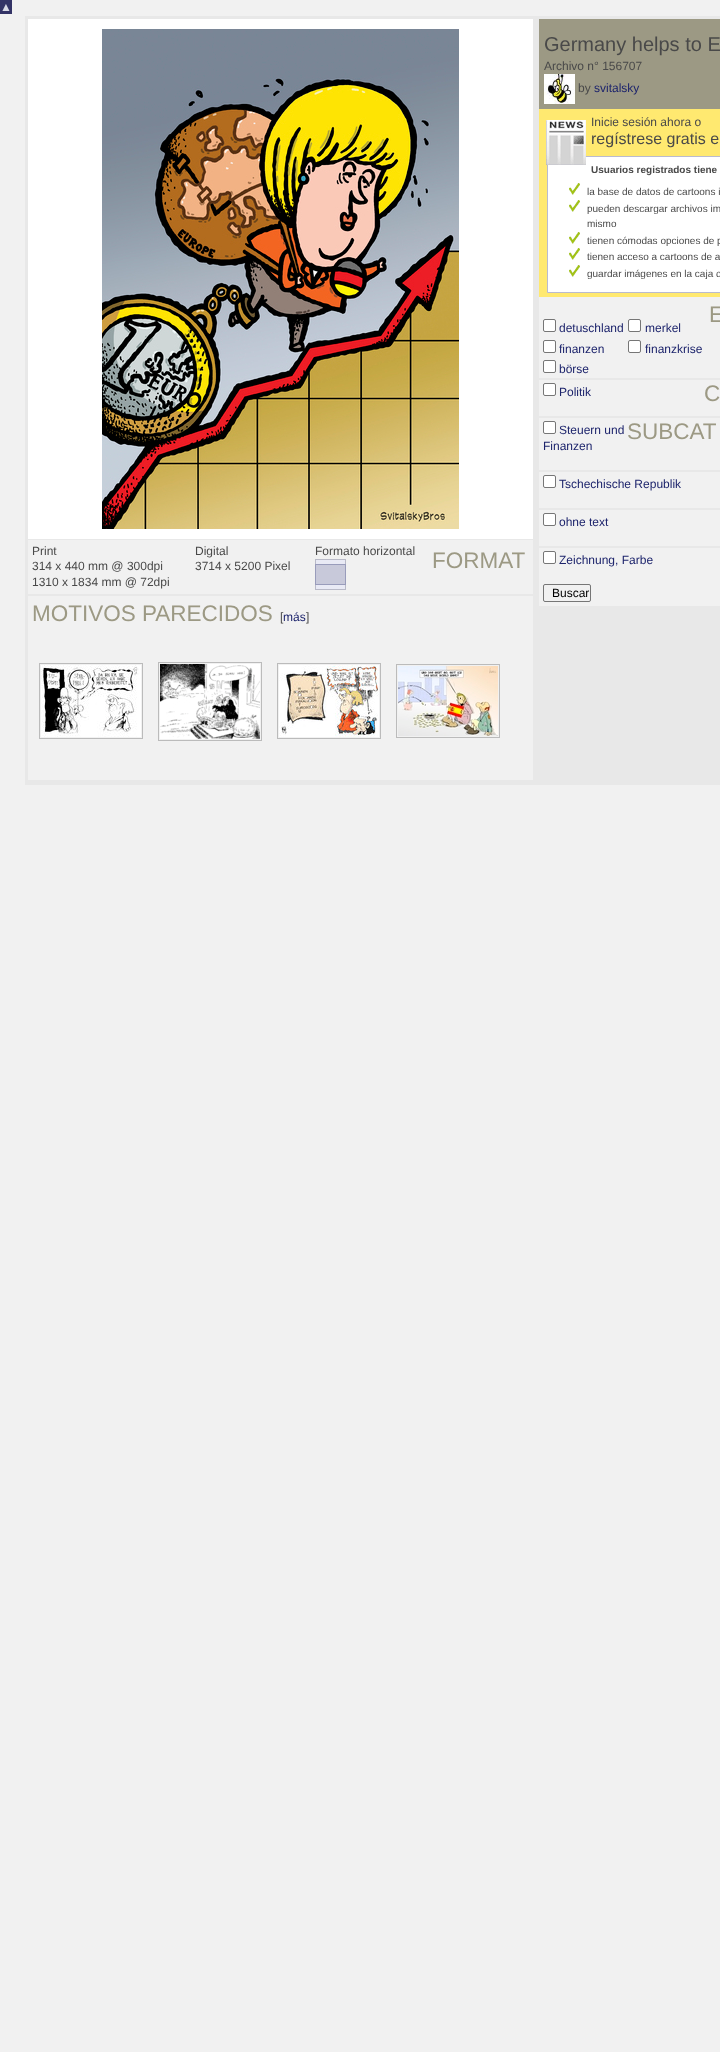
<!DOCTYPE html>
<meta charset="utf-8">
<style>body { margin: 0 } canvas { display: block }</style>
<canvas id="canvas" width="720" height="2052"></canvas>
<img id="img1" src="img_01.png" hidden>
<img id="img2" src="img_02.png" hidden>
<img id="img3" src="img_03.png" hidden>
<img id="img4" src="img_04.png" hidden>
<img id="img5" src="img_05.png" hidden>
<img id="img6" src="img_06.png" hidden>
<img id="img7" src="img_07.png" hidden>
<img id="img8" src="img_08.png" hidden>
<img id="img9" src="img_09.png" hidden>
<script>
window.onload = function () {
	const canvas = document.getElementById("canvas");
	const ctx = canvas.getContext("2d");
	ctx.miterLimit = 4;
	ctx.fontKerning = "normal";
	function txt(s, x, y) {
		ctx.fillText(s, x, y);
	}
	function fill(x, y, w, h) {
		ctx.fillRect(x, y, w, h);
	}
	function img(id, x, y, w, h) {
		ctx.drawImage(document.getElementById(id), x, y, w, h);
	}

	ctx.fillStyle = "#F1F1F1";
	fill(0, 0, 720, 2052);
	ctx.fillStyle = "#333366";
	fill(0, 0, 12, 14);
	ctx.fillStyle = "#E8E8E8";
	fill(25, 16, 695, 769);
	ctx.fillStyle = "#FFFFFF";
	fill(28, 19, 505, 520);
	img("img1", 102, 29, 357, 500);
	ctx.fillStyle = "#F1F1F1";
	fill(28, 540, 505, 54);
	img("img2", 315, 559, 31, 31);
	fill(28, 596, 505, 184);
	ctx.strokeStyle = "#BBBBBB";
	ctx.strokeRect(39.5, 663.5, 103, 75);
	img("img3", 41, 665, 100, 72);
	ctx.strokeRect(158.5, 662.5, 103, 78);
	img("img4", 160, 664, 100, 75);
	ctx.strokeRect(277.5, 663.5, 103, 75);
	img("img5", 279, 665, 100, 72);
	ctx.strokeRect(396.5, 664.5, 103, 73);
	img("img6", 398, 666, 100, 70);
	ctx.fillStyle = "#9C9984";
	fill(539, 19, 181, 90);
	img("img7", 544, 74, 31, 30);
	ctx.fillStyle = "#FFE970";
	fill(539, 109, 181, 188);
	ctx.fillStyle = "#FFFFFF";
	ctx.beginPath();
	ctx.rect(547.5, 156.5, 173, 136);
	ctx.fill();
	ctx.strokeStyle = "#B9BBD0";
	ctx.stroke();
	img("img8", 546, 120, 40, 45);
	img("img9", 569, 183, 11, 12);
	img("img9", 569, 200, 11, 12);
	img("img9", 569, 232, 11, 12);
	img("img9", 569, 248, 11, 12);
	img("img9", 569, 265, 11, 12);
	ctx.fillStyle = "#F1F1F1";
	fill(539, 297, 181, 309);
	ctx.fillStyle = "#FFFFFF";
	ctx.beginPath();
	ctx.roundRect(543.5, 319.5, 12, 12, 1.5);
	ctx.fill();
	ctx.strokeStyle = "#767676";
	ctx.stroke();
	ctx.beginPath();
	ctx.roundRect(628.5, 319.5, 12, 12, 1.5);
	ctx.fill();
	ctx.stroke();
	ctx.beginPath();
	ctx.roundRect(543.5, 340.5, 12, 12, 1.5);
	ctx.fill();
	ctx.stroke();
	ctx.beginPath();
	ctx.roundRect(628.5, 340.5, 12, 12, 1.5);
	ctx.fill();
	ctx.stroke();
	ctx.beginPath();
	ctx.roundRect(543.5, 360.5, 12, 12, 1.5);
	ctx.fill();
	ctx.stroke();
	ctx.fillStyle = "#E8E8E8";
	fill(539, 378, 181, 2);
	ctx.fillStyle = "#FFFFFF";
	ctx.beginPath();
	ctx.roundRect(543.5, 383.5, 12, 12, 1.5);
	ctx.fill();
	ctx.stroke();
	ctx.fillStyle = "#E8E8E8";
	fill(539, 416, 181, 2);
	ctx.fillStyle = "#FFFFFF";
	ctx.beginPath();
	ctx.roundRect(543.5, 421.5, 12, 12, 1.5);
	ctx.fill();
	ctx.stroke();
	ctx.fillStyle = "#E8E8E8";
	fill(539, 470, 181, 2);
	ctx.fillStyle = "#FFFFFF";
	ctx.beginPath();
	ctx.roundRect(543.5, 475.5, 12, 12, 1.5);
	ctx.fill();
	ctx.stroke();
	ctx.fillStyle = "#E8E8E8";
	fill(539, 508, 181, 2);
	ctx.fillStyle = "#FFFFFF";
	ctx.beginPath();
	ctx.roundRect(543.5, 513.5, 12, 12, 1.5);
	ctx.fill();
	ctx.stroke();
	ctx.fillStyle = "#E8E8E8";
	fill(539, 546, 181, 2);
	ctx.fillStyle = "#FFFFFF";
	ctx.beginPath();
	ctx.roundRect(543.5, 551.5, 12, 12, 1.5);
	ctx.fill();
	ctx.stroke();
	ctx.beginPath();
	ctx.roundRect(543.5, 584.5, 47, 17, 1.5);
	ctx.stroke();
	ctx.font = "12px Liberation Sans";
	ctx.fillStyle = "#D8D9E5";
	txt("▲", 0, 11);
	ctx.fillStyle = "#494949";
	txt("Print", 32, 555);
	txt("314 x 440 mm @ 300dpi", 32, 570);
	txt("1310 x 1834 mm @ 72dpi", 32, 586);
	txt("Digital", 195, 555);
	txt("3714 x 5200 Pixel", 195, 570);
	txt("Formato horizontal", 315, 555);
	ctx.font = "22.5px Liberation Sans";
	ctx.fillStyle = "#9C9984";
	txt("FORMAT", 432, 568);
	txt("MOTIVOS PARECIDOS", 32, 621);
	ctx.font = "12px Liberation Sans";
	ctx.fillStyle = "#494949";
	txt("[", 280, 621);
	ctx.fillStyle = "#1D246C";
	txt("más", 283, 621);
	ctx.fillStyle = "#494949";
	txt("]", 306, 621);
	ctx.font = "20px Liberation Sans";
	txt("Germany helps to E", 544, 51);
	ctx.font = "12px Liberation Sans";
	txt("Archivo n° 156707", 544, 70);
	txt("by", 578, 92);
	ctx.fillStyle = "#1D246C";
	txt("svitalsky", 594, 92);
	ctx.fillStyle = "#494949";
	txt("Inicie sesión ahora o", 591, 126);
	ctx.font = "16px Liberation Sans";
	txt("regístrese gratis e", 591, 144);
	ctx.font = "bold 10px Liberation Sans";
	txt("Usuarios registrados tiene", 591, 173);
	ctx.font = "10px Liberation Sans";
	txt("la base de datos de cartoons i", 587, 195);
	txt("pueden descargar archivos im", 587, 212);
	txt("mismo", 587, 227);
	txt("tienen cómodas opciones de p", 587, 244);
	txt("tienen acceso a cartoons de a", 587, 260);
	txt("guardar imágenes en la caja d", 587, 277);
	ctx.font = "22.5px Liberation Sans";
	ctx.fillStyle = "#9C9984";
	txt("E", 709, 322);
	ctx.font = "12px Liberation Sans";
	ctx.fillStyle = "#1D246C";
	txt("detuschland", 559, 332);
	txt("merkel", 645, 332);
	txt("finanzen", 559, 353);
	txt("finanzkrise", 645, 353);
	txt("börse", 559, 373);
	txt("Politik", 559, 396);
	ctx.font = "22.5px Liberation Sans";
	ctx.fillStyle = "#9C9984";
	txt("C", 704, 401);
	ctx.font = "12px Liberation Sans";
	ctx.fillStyle = "#1D246C";
	txt("Steuern und", 559, 434);
	ctx.font = "22.5px Liberation Sans";
	ctx.fillStyle = "#9C9984";
	txt("SUBCAT", 627, 439);
	ctx.font = "12px Liberation Sans";
	ctx.fillStyle = "#1D246C";
	txt("Finanzen", 543, 450);
	txt("Tschechische Republik", 559, 488);
	txt("ohne text", 559, 526);
	txt("Zeichnung, Farbe", 559, 564);
	ctx.fillStyle = "#000000";
	txt("Buscar", 552, 597);
};
</script>
